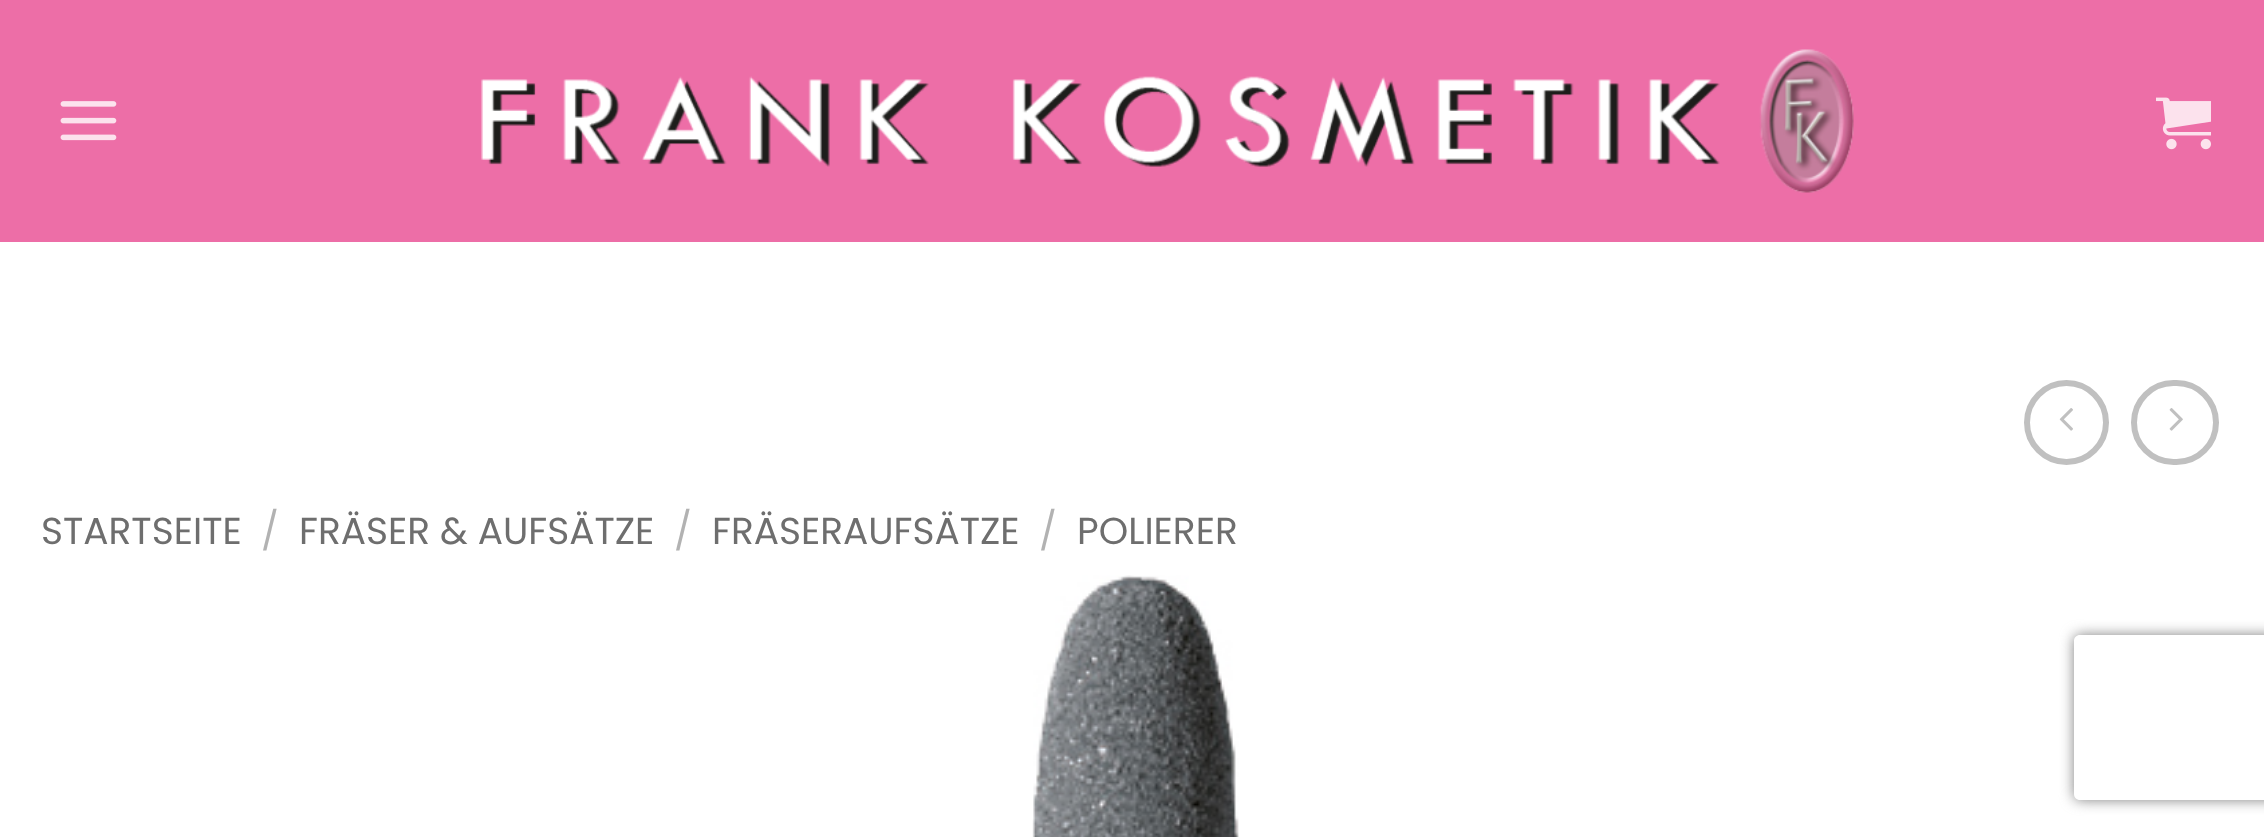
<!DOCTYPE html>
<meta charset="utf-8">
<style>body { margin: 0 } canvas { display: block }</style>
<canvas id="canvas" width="2264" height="837"></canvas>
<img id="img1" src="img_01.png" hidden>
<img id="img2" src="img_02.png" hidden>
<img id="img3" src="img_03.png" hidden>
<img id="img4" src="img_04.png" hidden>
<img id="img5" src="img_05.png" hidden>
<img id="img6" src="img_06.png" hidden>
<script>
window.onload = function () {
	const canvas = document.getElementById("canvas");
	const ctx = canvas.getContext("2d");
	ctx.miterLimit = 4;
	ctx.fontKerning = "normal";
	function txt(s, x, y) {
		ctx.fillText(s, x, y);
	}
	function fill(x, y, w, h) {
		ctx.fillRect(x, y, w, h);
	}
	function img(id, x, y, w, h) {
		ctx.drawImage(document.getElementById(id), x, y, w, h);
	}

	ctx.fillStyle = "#FFFFFF";
	fill(0, 0, 2264, 837);
	ctx.fillStyle = "#ED6EA7";
	fill(0, 0, 2264, 242);
	img("img1", 60, 101, 57, 40);
	img("img2", 481, 49, 1373, 144);
	img("img3", 2156, 97, 55, 53);
	ctx.beginPath();
	ctx.arc(2066.5, 422.5, 39.5, 0, Math.PI * 2);
	ctx.strokeStyle = "#C0C0C0";
	ctx.lineWidth = 6;
	ctx.stroke();
	img("img4", 2059, 408, 14, 23);
	ctx.beginPath();
	ctx.roundRect(2134, 383, 82, 79, 39.5);
	ctx.stroke();
	img("img5", 2169, 408, 14, 23);
	img("img6", 1032, 575, 207, 262);
	ctx.save();
	ctx.beginPath();
	ctx.moveTo(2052, 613);
	ctx.lineTo(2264, 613);
	ctx.lineTo(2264, 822);
	ctx.lineTo(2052, 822);
	ctx.closePath();
	ctx.moveTo(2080, 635);
	ctx.lineTo(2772, 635);
	ctx.bezierCurveTo(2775.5, 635, 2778, 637.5, 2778, 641);
	ctx.lineTo(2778, 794);
	ctx.bezierCurveTo(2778, 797.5, 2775.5, 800, 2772, 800);
	ctx.lineTo(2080, 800);
	ctx.bezierCurveTo(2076.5, 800, 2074, 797.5, 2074, 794);
	ctx.lineTo(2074, 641);
	ctx.bezierCurveTo(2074, 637.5, 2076.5, 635, 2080, 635);
	ctx.closePath();
	ctx.clip("evenodd");
	ctx.fillStyle = "#808080";
	ctx.filter = "blur(7px)";
	ctx.beginPath();
	ctx.roundRect(2074, 635, 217, 165, 6);
	ctx.fill();
	ctx.filter = "none";
	ctx.restore();
	ctx.font = "37.5px Poppins";
	ctx.fillStyle = "#6E6E6E";
	txt("STARTSEITE", 41, 544);
	ctx.fillStyle = "#B2B2B2";
	txt("/", 261, 544);
	ctx.fillStyle = "#6E6E6E";
	txt("FRÄSER & AUFSÄTZE", 299, 544);
	ctx.fillStyle = "#B2B2B2";
	txt("/", 674, 544);
	ctx.fillStyle = "#6E6E6E";
	txt("FRÄSERAUFSÄTZE", 712, 544);
	ctx.fillStyle = "#B2B2B2";
	txt("/", 1039, 544);
	ctx.fillStyle = "#6E6E6E";
	txt("POLIERER", 1077, 544);
};
</script>
